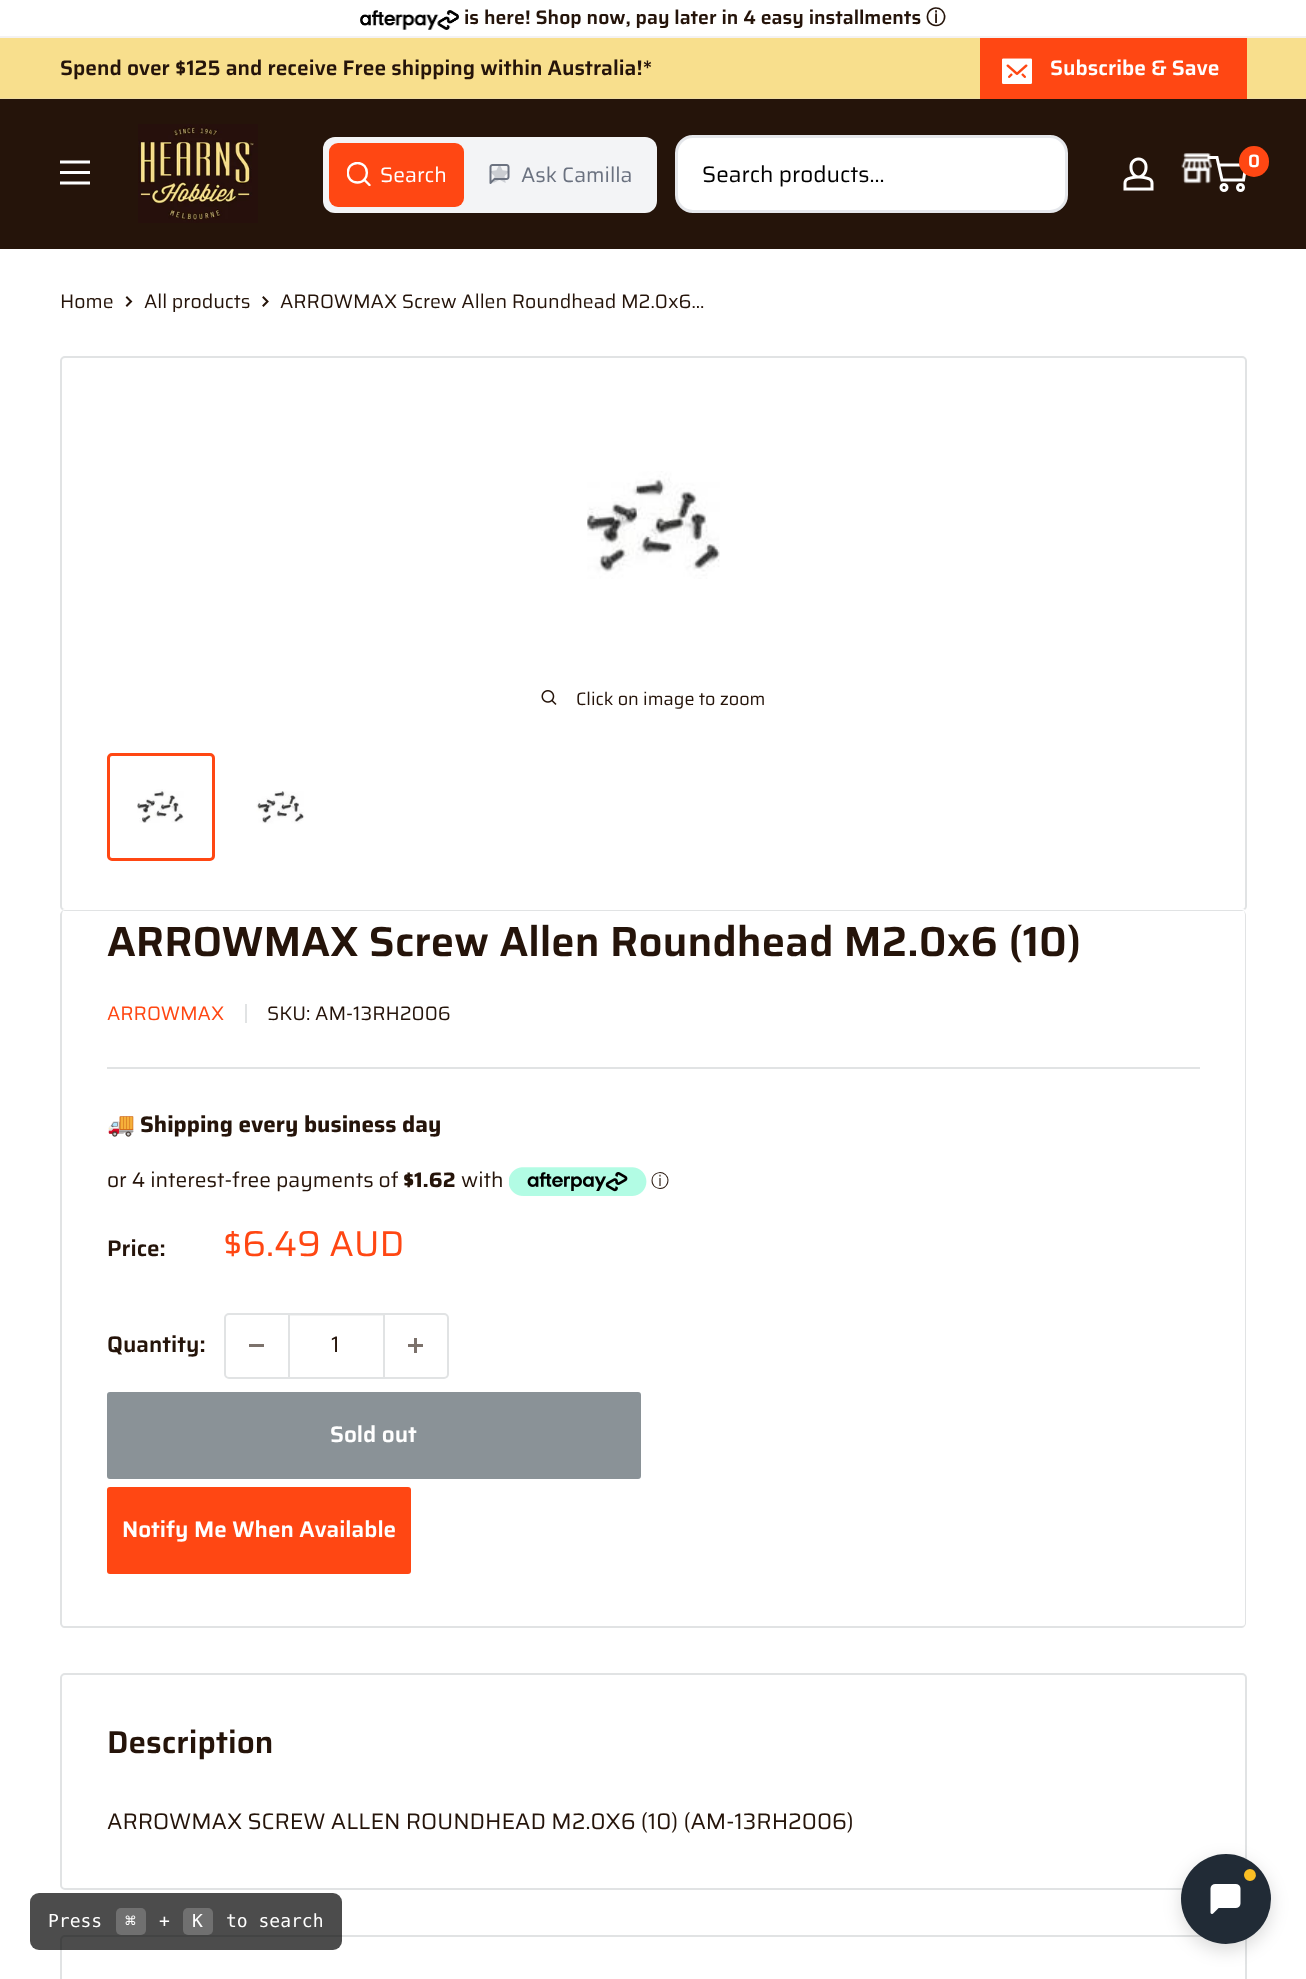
<!DOCTYPE html>
<meta charset="utf-8">
<style>body { margin: 0 } canvas { display: block }</style>
<canvas id="canvas" width="1306" height="1979"></canvas>
<img id="img1" src="img_01.png" hidden>
<img id="img2" src="img_02.png" hidden>
<img id="img3" src="img_03.png" hidden>
<img id="img4" src="img_04.png" hidden>
<img id="img5" src="img_05.png" hidden>
<img id="img6" src="img_06.png" hidden>
<img id="img7" src="img_07.png" hidden>
<img id="img8" src="img_08.png" hidden>
<img id="img9" src="img_09.png" hidden>
<img id="img10" src="img_10.png" hidden>
<img id="img11" src="img_11.png" hidden>
<img id="img12" src="img_12.png" hidden>
<img id="img13" src="img_13.png" hidden>
<img id="img14" src="img_14.png" hidden>
<script>
window.onload = function () {
	const canvas = document.getElementById("canvas");
	const ctx = canvas.getContext("2d");
	ctx.miterLimit = 4;
	ctx.fontKerning = "normal";
	function txt(s, x, y) {
		ctx.fillText(s, x, y);
	}
	function fill(x, y, w, h) {
		ctx.fillRect(x, y, w, h);
	}
	function round(x, y, w, h, r) {
		ctx.beginPath();
		ctx.roundRect(x, y, w, h, r);
		ctx.fill();
	}
	function img(id, x, y, w, h) {
		ctx.drawImage(document.getElementById(id), x, y, w, h);
	}

	ctx.fillStyle = "#FFFFFF";
	fill(0, 0, 1306, 1979);
	ctx.fillStyle = "#F4F2F2";
	fill(0, 36, 1306, 2);
	img("img1", 360, 10, 99, 20);
	ctx.fillStyle = "#F8DF8D";
	fill(0, 38, 1306, 60);
	ctx.fillStyle = "#EFDCA2";
	fill(0, 98, 1306, 1);
	ctx.fillStyle = "#FF4713";
	ctx.beginPath();
	ctx.moveTo(980, 98);
	ctx.lineTo(980, 99);
	ctx.lineTo(1247, 99);
	ctx.lineTo(1247, 39);
	ctx.lineTo(1246, 39);
	ctx.lineTo(1246, 98);
	ctx.closePath();
	ctx.fill();
	fill(980, 38, 267, 60);
	img("img2", 1002, 58, 30, 26);
	ctx.fillStyle = "#25140A";
	fill(0, 99, 1306, 150);
	img("img3", 60, 160, 30, 25);
	img("img4", 138, 124, 120, 99);
	ctx.fillStyle = "#F3F4F6";
	round(323, 137, 334, 76, 12);
	ctx.fillStyle = "#FF4713";
	round(329, 143, 135, 64, 9);
	ctx.save();
	ctx.beginPath();
	ctx.rect(347, 162, 24, 24);
	ctx.clip();
	ctx.beginPath();
	ctx.moveTo(357.5, 182.5);
	ctx.bezierCurveTo(370, 182.5, 370, 163, 357.5, 163);
	ctx.bezierCurveTo(344.5, 163, 344.5, 182.5, 357.5, 182.5);
	ctx.closePath();
	ctx.moveTo(369.5, 185);
	ctx.lineTo(364, 179.5);
	ctx.strokeStyle = "#FFFFFF";
	ctx.lineWidth = 2.4;
	ctx.lineCap = "round";
	ctx.lineJoin = "round";
	ctx.stroke();
	ctx.restore();
	img("img5", 489, 164, 21, 20);
	ctx.fillStyle = "#FFFFFF";
	ctx.beginPath();
	ctx.roundRect(676.5, 136.5, 390, 75, 16.5);
	ctx.fill();
	ctx.strokeStyle = "#E5E7EB";
	ctx.lineWidth = 3;
	ctx.stroke();
	img("img6", 1123, 157, 31, 34);
	img("img7", 1181, 153, 31, 31);
	ctx.beginPath();
	ctx.arc(1224, 187.5, 3, 0, Math.PI * 2);
	ctx.strokeStyle = "#FFFFFF";
	ctx.stroke();
	ctx.beginPath();
	ctx.arc(1240.5, 187.5, 3, 0, Math.PI * 2);
	ctx.stroke();
	ctx.beginPath();
	ctx.moveTo(1218.5, 165);
	ctx.lineTo(1246, 165);
	ctx.lineTo(1243.5, 180);
	ctx.lineTo(1222, 180);
	ctx.lineTo(1217, 157.5);
	ctx.lineTo(1207.5, 157.5);
	ctx.stroke();
	ctx.fillStyle = "#FF4713";
	round(1239, 146, 30, 31, 15);
	ctx.beginPath();
	ctx.moveTo(127, 297.5);
	ctx.lineTo(131, 301.5);
	ctx.lineTo(127, 305.5);
	ctx.strokeStyle = "#25140A";
	ctx.lineWidth = 2;
	ctx.lineCap = "square";
	ctx.stroke();
	ctx.beginPath();
	ctx.moveTo(263.5, 297.5);
	ctx.lineTo(267.5, 301.5);
	ctx.lineTo(263.5, 305.5);
	ctx.stroke();
	ctx.beginPath();
	ctx.roundRect(61, 357, 1185, 553, 4);
	ctx.strokeStyle = "#E1E3E4";
	ctx.stroke();
	img("img8", 587, 471, 133, 108);
	img("img9", 541, 690, 16, 15);
	ctx.beginPath();
	ctx.roundRect(108.5, 754.5, 105, 105, 3.5);
	ctx.strokeStyle = "#FF4713";
	ctx.lineWidth = 3;
	ctx.stroke();
	img("img10", 137, 789, 47, 34);
	img("img11", 256, 791, 49, 33);
	ctx.fillStyle = "#FFFFFF";
	ctx.beginPath();
	ctx.moveTo(65, 909);
	ctx.bezierCurveTo(62, 909, 60, 912, 60, 915);
	ctx.bezierCurveTo(60, 913, 62, 910, 64, 910);
	ctx.lineTo(1242, 910);
	ctx.bezierCurveTo(1244, 910, 1246, 913, 1246, 915);
	ctx.lineTo(1246, 1623);
	ctx.lineTo(1247, 1621);
	ctx.lineTo(1247, 914);
	ctx.bezierCurveTo(1247, 911, 1245, 909, 1242, 909);
	ctx.closePath();
	ctx.fill();
	ctx.fillStyle = "#E1E3E4";
	ctx.beginPath();
	ctx.moveTo(64, 910);
	ctx.lineTo(1242, 910);
	ctx.bezierCurveTo(1244, 910, 1246, 913, 1246, 915);
	ctx.lineTo(1246, 1623);
	ctx.bezierCurveTo(1246, 1625, 1244, 1628, 1242, 1628);
	ctx.lineTo(64, 1628);
	ctx.bezierCurveTo(62, 1628, 60, 1625, 60, 1623);
	ctx.lineTo(60, 915);
	ctx.bezierCurveTo(60, 913, 62, 910, 64, 910);
	ctx.closePath();
	ctx.moveTo(64, 910);
	ctx.lineTo(1242, 910);
	ctx.bezierCurveTo(1244, 910, 1245, 913, 1245, 915);
	ctx.lineTo(1245, 1623);
	ctx.bezierCurveTo(1245, 1625, 1244, 1626, 1242, 1626);
	ctx.lineTo(64, 1626);
	ctx.bezierCurveTo(63, 1626, 62, 1625, 62, 1623);
	ctx.lineTo(62, 915);
	ctx.bezierCurveTo(62, 913, 63, 910, 64, 910);
	ctx.closePath();
	ctx.fill("evenodd");
	fill(245, 1004, 2, 19);
	fill(107, 1067, 1093, 2);
	img("img12", 509, 1167, 138, 29);
	ctx.beginPath();
	ctx.roundRect(225, 1314, 223, 64, 4);
	ctx.strokeStyle = "#E1E3E4";
	ctx.lineWidth = 2;
	ctx.stroke();
	ctx.fillStyle = "#7C726C";
	fill(249, 1344, 15, 3);
	ctx.fillStyle = "rgba(225, 227, 228, 0.4)";
	fill(290, 1315, 93, 1);
	ctx.fillStyle = "#E1E3E4";
	fill(383, 1314, 2, 63);
	fill(288, 1314, 2, 63);
	img("img13", 408, 1338, 15, 15);
	ctx.fillStyle = "#8A9297";
	ctx.beginPath();
	ctx.roundRect(108, 1393, 532, 85, 2);
	ctx.fill();
	ctx.strokeStyle = "#8A9297";
	ctx.stroke();
	ctx.fillStyle = "#FF4713";
	round(107, 1487, 304, 87, 3);
	ctx.beginPath();
	ctx.roundRect(61, 1674, 1185, 215, 4);
	ctx.strokeStyle = "#E1E3E4";
	ctx.stroke();
	ctx.beginPath();
	ctx.roundRect(61, 1936, 1185, 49, 4);
	ctx.stroke();
	ctx.fillStyle = "rgba(0, 0, 0, 0.7)";
	round(30, 1893, 312, 57, 9);
	ctx.fillStyle = "#707070";
	round(116, 1908, 30, 27, 5);
	round(183, 1908, 30, 27, 5);
	ctx.fillStyle = "rgba(0, 0, 0, 0.15)";
	ctx.filter = "blur(9px)";
	ctx.beginPath();
	ctx.roundRect(1181, 1860, 90, 90, 45);
	ctx.fill();
	ctx.filter = "none";
	ctx.fillStyle = "#212B36";
	ctx.beginPath();
	ctx.arc(1226, 1899, 45, 0, Math.PI * 2);
	ctx.fill();
	ctx.fillStyle = "#FBBF24";
	ctx.beginPath();
	ctx.arc(1250, 1875, 7.5, 0, Math.PI * 2);
	ctx.fill();
	ctx.strokeStyle = "#212B36";
	ctx.lineWidth = 3;
	ctx.stroke();
	img("img14", 1210, 1884, 31, 30);
	ctx.font = "600 19.5px Saira";
	ctx.fillStyle = "#25140A";
	txt("is here! Shop now, pay later in 4 easy installments", 464, 24);
	ctx.font = "bold 19.5px WenQuanYi Zen Hei";
	txt("ⓘ", 926, 24);
	ctx.font = "600 21px Saira";
	txt("Spend over $125 and receive Free shipping within Australia!*", 60, 75);
	ctx.fillStyle = "#FFFFFF";
	txt("Subscribe & Save", 1050, 75);
	ctx.font = "21px Saira";
	txt("Search", 380, 182);
	ctx.fillStyle = "#6B7280";
	txt("Ask Camilla", 521, 182);
	ctx.font = "22.5px Saira";
	ctx.fillStyle = "#000000";
	txt("Search products...", 702, 182);
	ctx.font = "600 18px Saira";
	ctx.fillStyle = "#FFFFFF";
	txt("0", 1248, 167);
	ctx.font = "19.5px Saira";
	ctx.fillStyle = "#25140A";
	txt("Home", 60, 308);
	txt("All products", 144, 308);
	txt("ARROWMAX Screw Allen Roundhead M2.0x6...", 280, 308);
	ctx.font = "18px Saira";
	txt("Click on image to zoom", 576, 705);
	ctx.font = "600 42px Saira";
	txt("ARROWMAX Screw Allen Roundhead M2.0x6 (10)", 107, 956);
	ctx.font = "19.5px Saira";
	ctx.fillStyle = "#FF4713";
	txt("ARROWMAX", 107, 1020);
	ctx.fillStyle = "#25140A";
	txt("SKU: AM-13RH2006", 267, 1020);
	ctx.font = "bold 22.5px Noto Color Emoji";
	txt("🚚", 107, 1132);
	ctx.font = "bold 22.5px Saira";
	txt("Shipping every business day", 140, 1132);
	ctx.font = "21px Saira";
	txt("or 4 interest-free payments of", 107, 1187);
	ctx.font = "bold 21px Saira";
	txt("$1.62", 403, 1187);
	ctx.font = "21px Saira";
	txt("with", 461, 1187);
	ctx.font = "500 18px WenQuanYi Zen Hei";
	txt("ⓘ", 651, 1187);
	ctx.font = "600 22.5px Saira";
	txt("Price:", 107, 1256);
	ctx.font = "36px Saira";
	ctx.fillStyle = "#FF4713";
	txt("$6.49 AUD", 223, 1256);
	ctx.font = "600 22.5px Saira";
	ctx.fillStyle = "#25140A";
	txt("Quantity:", 107, 1352);
	ctx.font = "22.5px Saira";
	txt("1", 331, 1352);
	ctx.font = "600 22.5px Saira";
	ctx.fillStyle = "#FFFFFF";
	txt("Sold out", 330, 1442);
	txt("Notify Me When Available", 122, 1537);
	ctx.font = "600 31.5px Saira";
	ctx.fillStyle = "#25140A";
	txt("Description", 107, 1753);
	ctx.font = "22.5px Saira";
	txt("ARROWMAX SCREW ALLEN ROUNDHEAD M2.0X6 (10) (AM-13RH2006)", 107, 1829);
	ctx.font = "18px DejaVu Sans Mono";
	ctx.fillStyle = "#FFFFFF";
	txt("Press", 48, 1927);
	txt("⌘", 125, 1927);
	txt("+", 159, 1927);
	txt("K", 192, 1927);
	txt("to search", 226, 1927);
};
</script>
